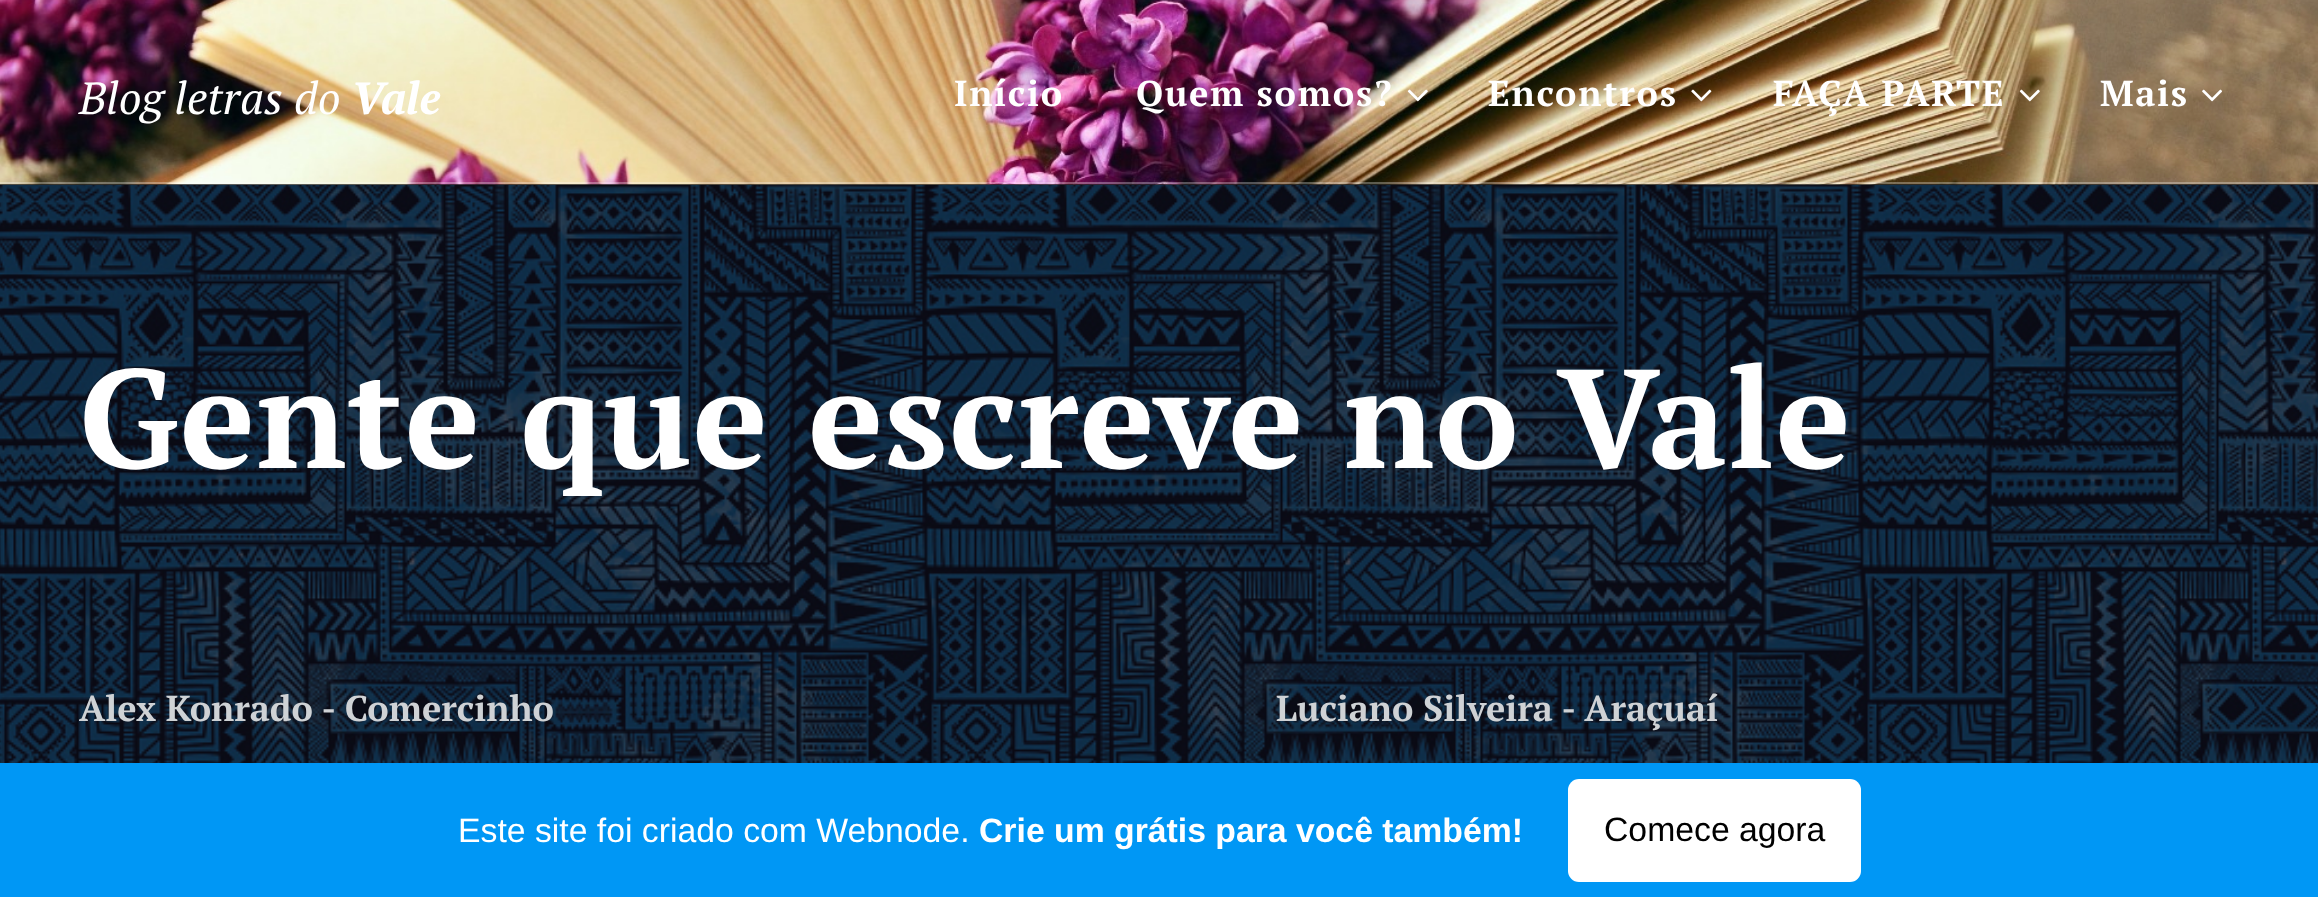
<!DOCTYPE html>
<meta charset="utf-8">
<style>body { margin: 0 } canvas { display: block }</style>
<canvas id="canvas" width="2318" height="897"></canvas>
<img id="img1" src="img_01.png" hidden>
<img id="img2" src="img_02.png" hidden>
<img id="img3" src="img_03.png" hidden>
<img id="img4" src="img_04.png" hidden>
<img id="img5" src="img_05.png" hidden>
<img id="img6" src="img_06.png" hidden>
<script>
window.onload = function () {
	const canvas = document.getElementById("canvas");
	const ctx = canvas.getContext("2d");
	ctx.miterLimit = 4;
	ctx.fontKerning = "normal";
	function txt(s, x, y) {
		ctx.fillText(s, x, y);
	}
	function fill(x, y, w, h) {
		ctx.fillRect(x, y, w, h);
	}
	function round(x, y, w, h, r) {
		ctx.beginPath();
		ctx.roundRect(x, y, w, h, r);
		ctx.fill();
	}
	function img(id, x, y, w, h) {
		ctx.drawImage(document.getElementById(id), x, y, w, h);
	}

	ctx.fillStyle = "#FFFFFF";
	fill(0, 0, 2318, 897);
	ctx.fillStyle = "#272727";
	fill(0, 184, 2318, 1);
	img("img1", 0, 0, 2318, 185);
	img("img2", 1407, 89, 21, 13);
	img("img3", 1691, 89, 21, 13);
	img("img4", 2019, 89, 21, 13);
	img("img5", 2202, 89, 20, 13);
	ctx.fillStyle = "rgba(255, 255, 255, 0.3)";
	fill(0, 182, 2318, 2);
	img("img6", 0, 185, 2318, 578);
	ctx.fillStyle = "#0097F5";
	fill(0, 763, 2318, 134);
	ctx.fillStyle = "#FFFFFF";
	round(1568, 779, 293, 103, 11);
	ctx.font = "italic 45px PT Serif";
	txt("Blog letras do", 79, 114);
	ctx.font = "italic bold 45px PT Serif";
	txt("Vale", 351, 114);
	ctx.letterSpacing = "1.75px";
	ctx.font = "bold 36px PT Serif";
	txt("Início", 954, 106);
	txt("Quem somos?", 1136, 106);
	txt("Encontros", 1488, 106);
	txt("FAÇA PARTE", 1773, 106);
	txt("Mais", 2100, 106);
	ctx.letterSpacing = "1.1px";
	ctx.font = "bold 140.4px PT Serif";
	txt("Gente que escreve no Vale", 79, 468);
	ctx.letterSpacing = "0px";
	ctx.font = "bold 36px PT Serif";
	ctx.fillStyle = "#CFD2D5";
	txt("Alex Konrado - Comercinho", 79, 721);
	txt("Luciano Silveira - Araçuaí", 1276, 721);
	ctx.font = "33.75px Liberation Sans";
	ctx.fillStyle = "#FFFFFF";
	txt("Este site foi criado com Webnode.", 458, 842);
	ctx.font = "bold 33.75px Liberation Sans";
	txt("Crie um grátis para você também!", 979, 842);
	ctx.font = "33.75px Liberation Sans";
	ctx.fillStyle = "#000000";
	txt("Comece agora", 1604, 841);
};
</script>
